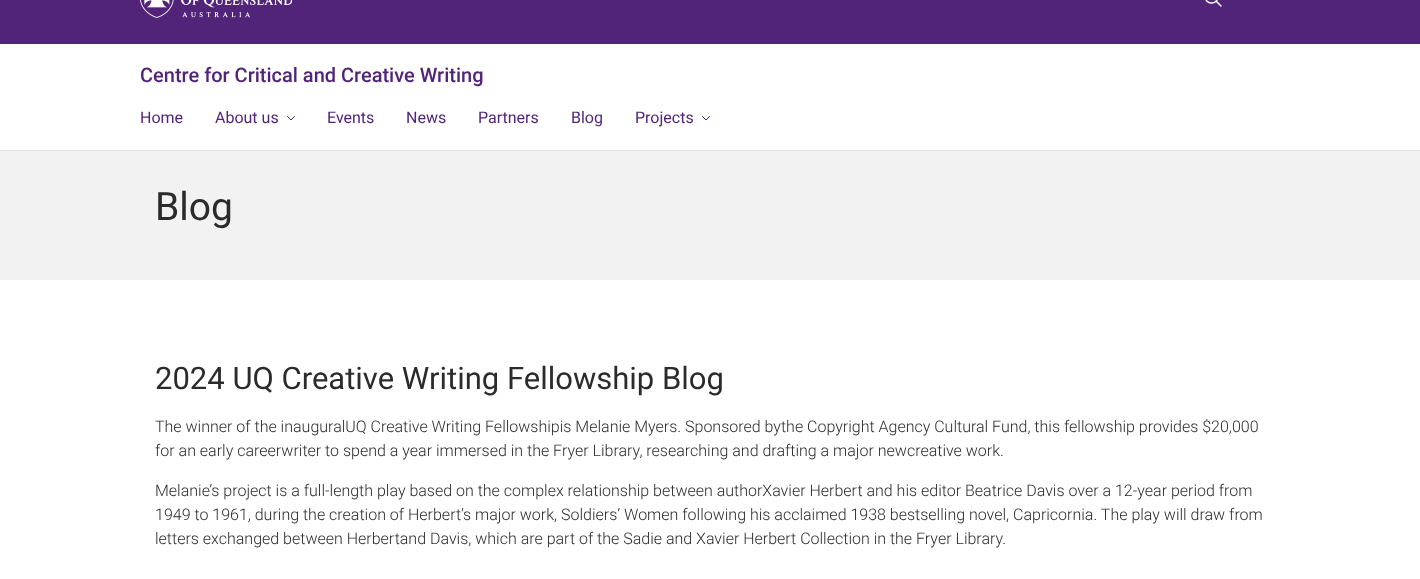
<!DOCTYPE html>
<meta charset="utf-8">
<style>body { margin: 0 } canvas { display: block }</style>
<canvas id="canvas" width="1420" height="579"></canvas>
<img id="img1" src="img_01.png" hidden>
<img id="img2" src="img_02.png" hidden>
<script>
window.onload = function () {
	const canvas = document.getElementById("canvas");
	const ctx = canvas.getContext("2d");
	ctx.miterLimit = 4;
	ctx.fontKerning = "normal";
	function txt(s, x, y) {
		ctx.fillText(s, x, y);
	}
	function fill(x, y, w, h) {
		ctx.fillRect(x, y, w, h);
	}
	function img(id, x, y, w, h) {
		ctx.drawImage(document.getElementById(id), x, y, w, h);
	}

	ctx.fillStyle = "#FFFFFF";
	fill(0, 0, 1420, 579);
	ctx.fillStyle = "#51247A";
	fill(0, 0, 1420, 44);
	img("img1", 140, 0, 152, 18);
	img("img2", 1205, 0, 17, 7);
	ctx.fillStyle = "#E2E2E2";
	fill(0, 150, 1420, 1);
	ctx.beginPath();
	ctx.moveTo(287.5, 116.5);
	ctx.lineTo(291, 120);
	ctx.lineTo(294.5, 116.5);
	ctx.strokeStyle = "#51247A";
	ctx.lineCap = "round";
	ctx.lineJoin = "round";
	ctx.stroke();
	ctx.beginPath();
	ctx.moveTo(702.5, 116.5);
	ctx.lineTo(706, 120);
	ctx.lineTo(709.5, 116.5);
	ctx.stroke();
	ctx.fillStyle = "#F2F2F2";
	fill(0, 151, 1420, 129);
	ctx.font = "500 20px Roboto";
	ctx.fillStyle = "#51247A";
	txt("Centre for Critical and Creative Writing", 140, 82);
	ctx.font = "16px Roboto";
	txt("Home", 140, 123);
	txt("About us", 215, 123);
	txt("Events", 327, 123);
	txt("News", 406, 123);
	txt("Partners", 478, 123);
	txt("Blog", 571, 123);
	txt("Projects", 635, 123);
	ctx.font = "39px Roboto";
	ctx.fillStyle = "#2B2B2B";
	txt("Blog", 155, 220);
	ctx.font = "31px Roboto";
	txt("2024 UQ Creative Writing Fellowship Blog", 155, 389);
	ctx.font = "300 16px Roboto";
	txt("The winner of the inauguralUQ Creative Writing Fellowshipis Melanie Myers. Sponsored bythe Copyright Agency Cultural Fund, this fellowship provides $20,000", 155, 432);
	txt("for an early careerwriter to spend a year immersed in the Fryer Library, researching and drafting a major newcreative work.", 155, 456);
	txt("Melanie’s project is a full-length play based on the complex relationship between authorXavier Herbert and his editor Beatrice Davis over a 12-year period from", 155, 496);
	txt("1949 to 1961, during the creation of Herbert’s major work, Soldiers’ Women following his acclaimed 1938 bestselling novel, Capricornia. The play will draw from", 155, 520);
	txt("letters exchanged between Herbertand Davis, which are part of the Sadie and Xavier Herbert Collection in the Fryer Library.", 155, 544);
};
</script>
